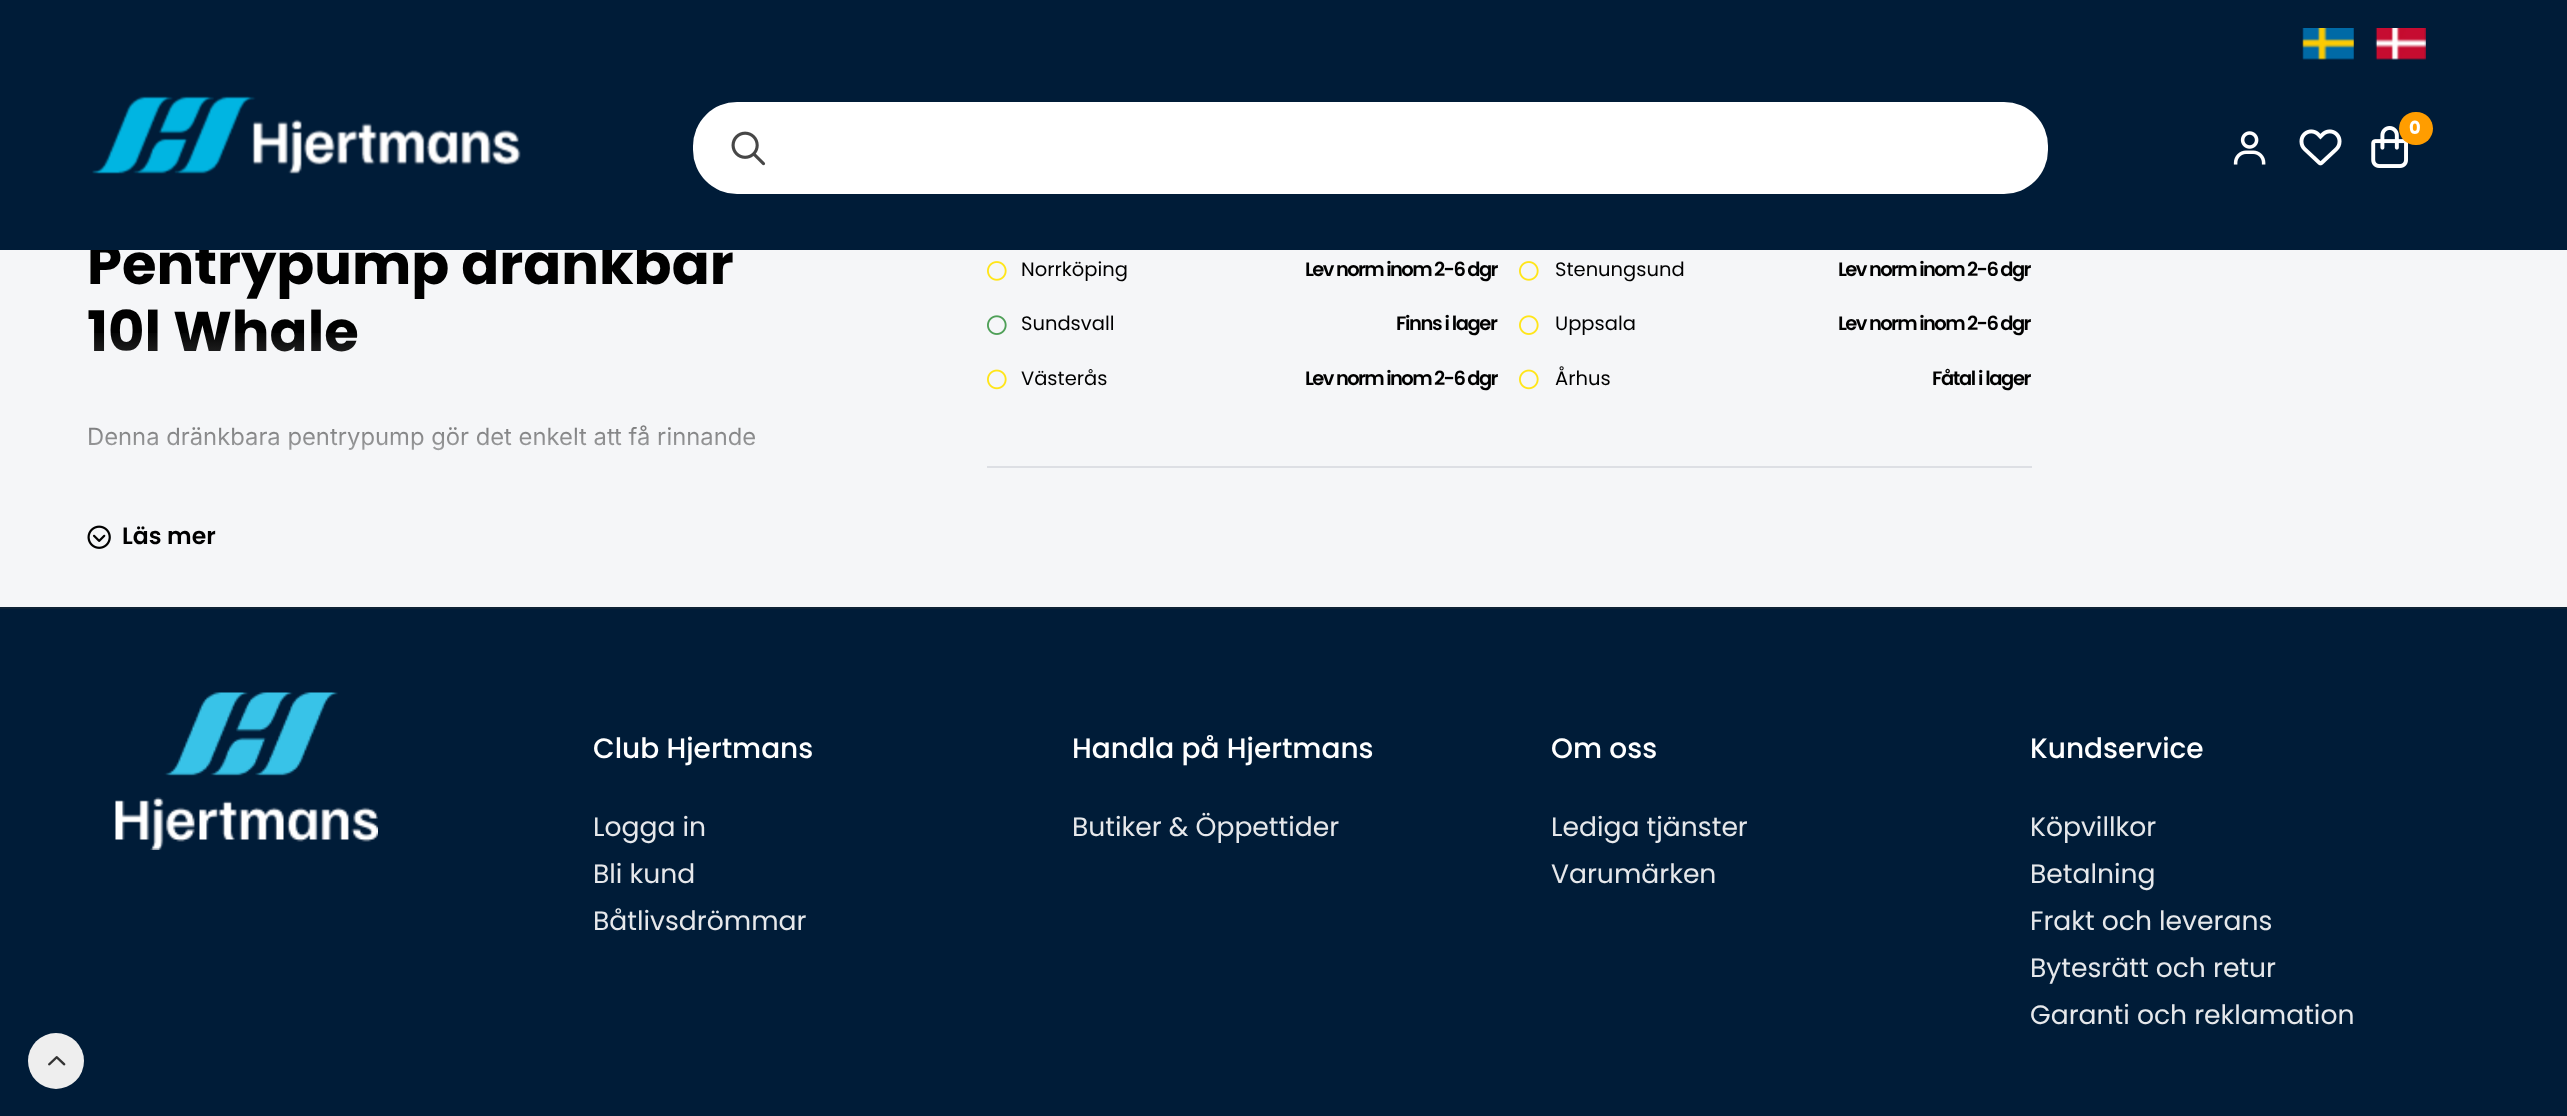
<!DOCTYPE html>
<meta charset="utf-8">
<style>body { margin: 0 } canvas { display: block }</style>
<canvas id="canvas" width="2567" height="1116"></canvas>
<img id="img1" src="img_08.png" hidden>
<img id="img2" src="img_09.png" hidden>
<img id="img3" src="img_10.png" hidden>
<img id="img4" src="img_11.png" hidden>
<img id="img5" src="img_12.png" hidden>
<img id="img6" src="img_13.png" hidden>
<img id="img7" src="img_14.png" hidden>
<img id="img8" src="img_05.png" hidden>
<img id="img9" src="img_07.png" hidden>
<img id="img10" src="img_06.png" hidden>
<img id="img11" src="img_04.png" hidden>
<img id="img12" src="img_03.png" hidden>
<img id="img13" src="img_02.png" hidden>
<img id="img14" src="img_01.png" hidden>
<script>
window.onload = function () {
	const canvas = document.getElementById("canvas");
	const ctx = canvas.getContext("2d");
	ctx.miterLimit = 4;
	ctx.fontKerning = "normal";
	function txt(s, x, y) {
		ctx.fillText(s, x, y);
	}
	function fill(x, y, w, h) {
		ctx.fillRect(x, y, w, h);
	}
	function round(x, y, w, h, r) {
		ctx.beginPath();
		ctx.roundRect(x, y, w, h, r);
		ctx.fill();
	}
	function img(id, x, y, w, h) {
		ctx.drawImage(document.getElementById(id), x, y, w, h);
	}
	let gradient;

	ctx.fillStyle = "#F5F6F8";
	fill(0, 0, 2567, 1116);
	img("img1", 87, 525, 24, 24);
	ctx.fillStyle = "#DDDFE4";
	fill(987, 466, 1045, 2);
	img("img2", 987, 261, 20, 20);
	img("img2", 1519, 261, 20, 20);
	img("img3", 987, 315, 20, 20);
	img("img4", 1519, 315, 20, 20);
	img("img5", 987, 369, 20, 21);
	img("img5", 1519, 369, 20, 21);
	ctx.fillStyle = "#001C38";
	fill(0, 609, 2567, 507);
	ctx.fillStyle = "#0D2236";
	fill(0, 607, 2567, 2);
	img("img6", 115, 692, 263, 158);
	ctx.fillStyle = "#EEEEEE";
	ctx.beginPath();
	ctx.arc(56, 1061, 28, 0, Math.PI * 2);
	ctx.fill();
	img("img7", 48, 1056, 18, 10);
	ctx.font = "bold 56px Poppins";
	ctx.fillStyle = "#000000";
	txt("Pentrypump dränkbar", 87, 284);
	ctx.fillStyle = "#001C38";
	fill(0, 0, 2567, 250);
	img("img8", 2371, 126, 37, 42);
	ctx.fillStyle = "#FF9D00";
	round(2399, 112, 34, 33, 16.5);
	ctx.font = "bold 18px Poppins";
	ctx.fillStyle = "#FFFFFF";
	txt("0", 2409, 134);
	img("img9", 2299, 129, 43, 37);
	img("img10", 2233, 131, 33, 34);
	round(693, 102, 1355, 92, 44);
	img("img11", 731, 131, 35, 35);
	img("img12", 92, 96, 429, 78);
	img("img13", 2375, 28, 51, 32);
	img("img14", 2302, 28, 52, 32);
	ctx.font = "bold 56px Poppins";
	ctx.fillStyle = "#000000";
	txt("10l Whale", 87, 351);
	ctx.font = "23.8px Inter";
	txt("Denna dränkbara pentrypump gör det enkelt att få rinnande", 87, 445);
	gradient = ctx.createLinearGradient(453, 329, 453, 520);
	gradient.addColorStop(0, "rgba(245, 246, 248, 0)");
	gradient.addColorStop(1, "#F5F6F8");
	ctx.fillStyle = gradient;
	fill(88, 333, 667, 118);
	ctx.font = "600 23.5px Poppins";
	ctx.fillStyle = "#000000";
	txt("Läs mer", 122, 544);
	ctx.font = "19.5px Poppins";
	txt("Norrköping", 1021, 276);
	ctx.letterSpacing = "-1.6px";
	ctx.font = "600 19.5px Poppins";
	txt("Lev norm inom 2-6 dgr", 1305, 276);
	ctx.letterSpacing = "0px";
	ctx.font = "19.5px Poppins";
	txt("Stenungsund", 1555, 276);
	ctx.letterSpacing = "-1.6px";
	ctx.font = "600 19.5px Poppins";
	txt("Lev norm inom 2-6 dgr", 1838, 276);
	ctx.letterSpacing = "0px";
	ctx.font = "19.5px Poppins";
	txt("Sundsvall", 1021, 330);
	ctx.letterSpacing = "-1.4px";
	ctx.font = "600 19.5px Poppins";
	txt("Finns i lager", 1396, 330);
	ctx.letterSpacing = "0px";
	ctx.font = "19.5px Poppins";
	txt("Uppsala", 1555, 330);
	ctx.letterSpacing = "-1.6px";
	ctx.font = "600 19.5px Poppins";
	txt("Lev norm inom 2-6 dgr", 1838, 330);
	ctx.letterSpacing = "0px";
	ctx.font = "19.5px Poppins";
	txt("Västerås", 1021, 385);
	ctx.letterSpacing = "-1.6px";
	ctx.font = "600 19.5px Poppins";
	txt("Lev norm inom 2-6 dgr", 1305, 385);
	ctx.letterSpacing = "0px";
	ctx.font = "19.5px Poppins";
	txt("Århus", 1555, 385);
	ctx.letterSpacing = "-1.4px";
	ctx.font = "600 19.5px Poppins";
	txt("Fåtal i lager", 1932, 385);
	ctx.letterSpacing = "0px";
	ctx.font = "500 28px Poppins";
	ctx.fillStyle = "#FFFFFF";
	txt("Club Hjertmans", 593, 758);
	ctx.font = "26.6px Poppins";
	ctx.fillStyle = "#E6E8EB";
	txt("Logga in", 593, 836);
	txt("Bli kund", 593, 883);
	txt("Båtlivsdrömmar", 593, 930);
	ctx.font = "500 28px Poppins";
	ctx.fillStyle = "#FFFFFF";
	txt("Handla på Hjertmans", 1072, 758);
	ctx.font = "26.6px Poppins";
	ctx.fillStyle = "#E6E8EB";
	txt("Butiker & Öppettider", 1072, 836);
	ctx.font = "500 28px Poppins";
	ctx.fillStyle = "#FFFFFF";
	txt("Om oss", 1551, 758);
	ctx.font = "26.6px Poppins";
	ctx.fillStyle = "#E6E8EB";
	txt("Lediga tjänster", 1551, 836);
	txt("Varumärken", 1551, 883);
	ctx.font = "500 28px Poppins";
	ctx.fillStyle = "#FFFFFF";
	txt("Kundservice", 2030, 758);
	ctx.font = "26.6px Poppins";
	ctx.fillStyle = "#E6E8EB";
	txt("Köpvillkor", 2030, 836);
	txt("Betalning", 2030, 883);
	txt("Frakt och leverans", 2030, 930);
	txt("Bytesrätt och retur", 2030, 977);
	txt("Garanti och reklamation", 2030, 1024);
};
</script>
